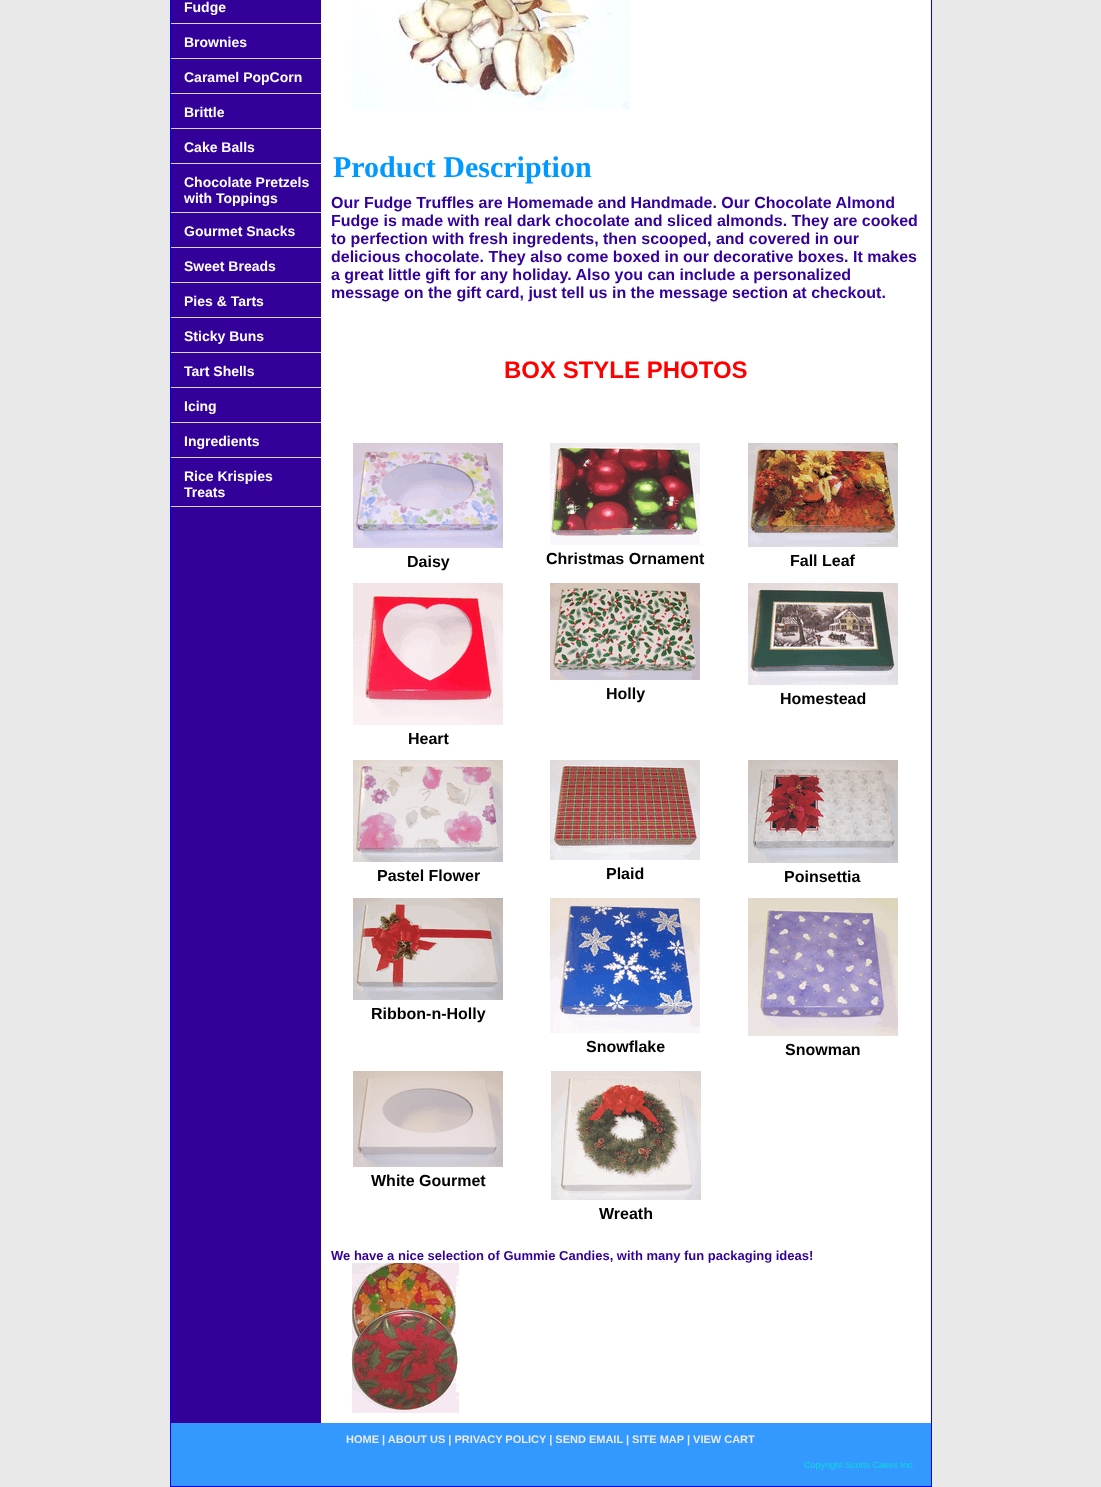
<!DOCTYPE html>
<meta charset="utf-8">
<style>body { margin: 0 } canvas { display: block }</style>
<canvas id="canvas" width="1101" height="1487"></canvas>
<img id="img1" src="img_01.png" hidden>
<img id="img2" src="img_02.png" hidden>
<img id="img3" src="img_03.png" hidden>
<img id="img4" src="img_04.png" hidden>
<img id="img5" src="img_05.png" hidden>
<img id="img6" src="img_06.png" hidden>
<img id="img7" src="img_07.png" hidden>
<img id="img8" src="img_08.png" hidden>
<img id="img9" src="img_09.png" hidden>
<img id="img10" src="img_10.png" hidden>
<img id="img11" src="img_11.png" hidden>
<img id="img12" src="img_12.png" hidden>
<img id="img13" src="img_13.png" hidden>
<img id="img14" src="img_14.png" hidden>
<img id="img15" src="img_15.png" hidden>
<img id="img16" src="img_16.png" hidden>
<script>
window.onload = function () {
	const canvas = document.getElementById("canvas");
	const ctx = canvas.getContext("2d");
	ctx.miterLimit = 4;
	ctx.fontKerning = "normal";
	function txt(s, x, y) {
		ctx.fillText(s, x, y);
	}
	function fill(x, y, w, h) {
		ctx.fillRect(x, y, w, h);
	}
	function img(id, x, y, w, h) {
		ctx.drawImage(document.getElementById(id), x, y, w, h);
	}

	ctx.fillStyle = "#E9E9E9";
	fill(0, 0, 1101, 1487);
	ctx.fillStyle = "#FFFFFF";
	fill(321, 0, 610, 1423);
	ctx.strokeStyle = "#0000FF";
	ctx.strokeRect(170.5, -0.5, 761, 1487);
	ctx.fillStyle = "#330099";
	fill(171, 0, 150, 1423);
	ctx.fillStyle = "#D6D8D3";
	fill(171, 23, 150, 1);
	fill(171, 58, 150, 1);
	fill(171, 93, 150, 1);
	fill(171, 128, 150, 1);
	fill(171, 163, 150, 1);
	fill(171, 212, 150, 1);
	fill(171, 247, 150, 1);
	fill(171, 282, 150, 1);
	fill(171, 317, 150, 1);
	fill(171, 352, 150, 1);
	fill(171, 387, 150, 1);
	fill(171, 422, 150, 1);
	fill(171, 457, 150, 1);
	fill(171, 506, 150, 1);
	img("img1", 351, 0, 279, 110);
	img("img2", 353, 443, 150, 105);
	img("img3", 550, 443, 150, 102);
	img("img4", 748, 443, 150, 104);
	img("img5", 550, 583, 150, 97);
	img("img6", 748, 583, 150, 102);
	img("img7", 353, 583, 150, 142);
	img("img8", 353, 760, 150, 102);
	img("img9", 550, 760, 150, 100);
	img("img10", 748, 760, 150, 103);
	img("img11", 353, 898, 150, 102);
	img("img12", 550, 898, 150, 135);
	img("img13", 748, 898, 150, 138);
	img("img14", 353, 1071, 150, 96);
	img("img15", 551, 1071, 150, 129);
	img("img16", 351, 1263, 108, 150);
	ctx.fillStyle = "#3399FF";
	fill(171, 1423, 760, 63);
	ctx.font = "bold 14px Liberation Sans";
	ctx.fillStyle = "#FFFFFF";
	txt("Fudge", 184, 12);
	txt("Brownies", 184, 47);
	txt("Caramel PopCorn", 184, 82);
	txt("Brittle", 184, 117);
	txt("Cake Balls", 184, 152);
	txt("Chocolate Pretzels", 184, 187);
	txt("with Toppings", 184, 203);
	txt("Gourmet Snacks", 184, 236);
	txt("Sweet Breads", 184, 271);
	txt("Pies & Tarts", 184, 306);
	txt("Sticky Buns", 184, 341);
	txt("Tart Shells", 184, 376);
	txt("Icing", 184, 411);
	txt("Ingredients", 184, 446);
	txt("Rice Krispies", 184, 481);
	txt("Treats", 184, 497);
	ctx.font = "bold 30px Liberation Serif";
	ctx.fillStyle = "#0099FF";
	txt("Product Description", 333, 177);
	ctx.font = "bold 16px Liberation Sans";
	ctx.fillStyle = "#330099";
	txt("Our Fudge Truffles are Homemade and Handmade. Our Chocolate Almond", 331, 208);
	txt("Fudge is made with real dark chocolate and sliced almonds. They are cooked", 331, 226);
	txt("to perfection with fresh ingredents, then scooped, and covered in our", 331, 244);
	txt("delicious chocolate. They also come boxed in our decorative boxes. It makes", 331, 262);
	txt("a great little gift for any holiday. Also you can include a personalized", 331, 280);
	txt("message on the gift card, just tell us in the message section at checkout.", 331, 298);
	ctx.font = "bold 24px Liberation Sans";
	ctx.fillStyle = "#FF0000";
	txt("BOX STYLE PHOTOS", 504, 378);
	ctx.font = "bold 16px Liberation Sans";
	ctx.fillStyle = "#000000";
	txt("Daisy", 407, 567);
	txt("Christmas Ornament", 546, 564);
	txt("Fall Leaf", 790, 566);
	txt("Holly", 606, 699);
	txt("Homestead", 780, 704);
	txt("Heart", 408, 744);
	txt("Pastel Flower", 377, 881);
	txt("Plaid", 606, 879);
	txt("Poinsettia", 784, 882);
	txt("Ribbon-n-Holly", 371, 1019);
	txt("Snowflake", 586, 1052);
	txt("Snowman", 785, 1055);
	txt("White Gourmet", 371, 1186);
	txt("Wreath", 599, 1219);
	ctx.font = "bold 13px Liberation Sans";
	ctx.fillStyle = "#330099";
	txt("We have a nice selection of Gummie Candies, with many fun packaging ideas!", 331, 1260);
	ctx.font = "bold 11px Liberation Sans";
	ctx.fillStyle = "#E9E9E9";
	txt("HOME | ABOUT US | PRIVACY POLICY | SEND EMAIL | SITE MAP | VIEW CART", 346, 1443);
	ctx.font = "9px Liberation Sans";
	ctx.fillStyle = "#0DDBDB";
	txt("Copyright Scotts Cakes Inc.", 804, 1468);
};
</script>
